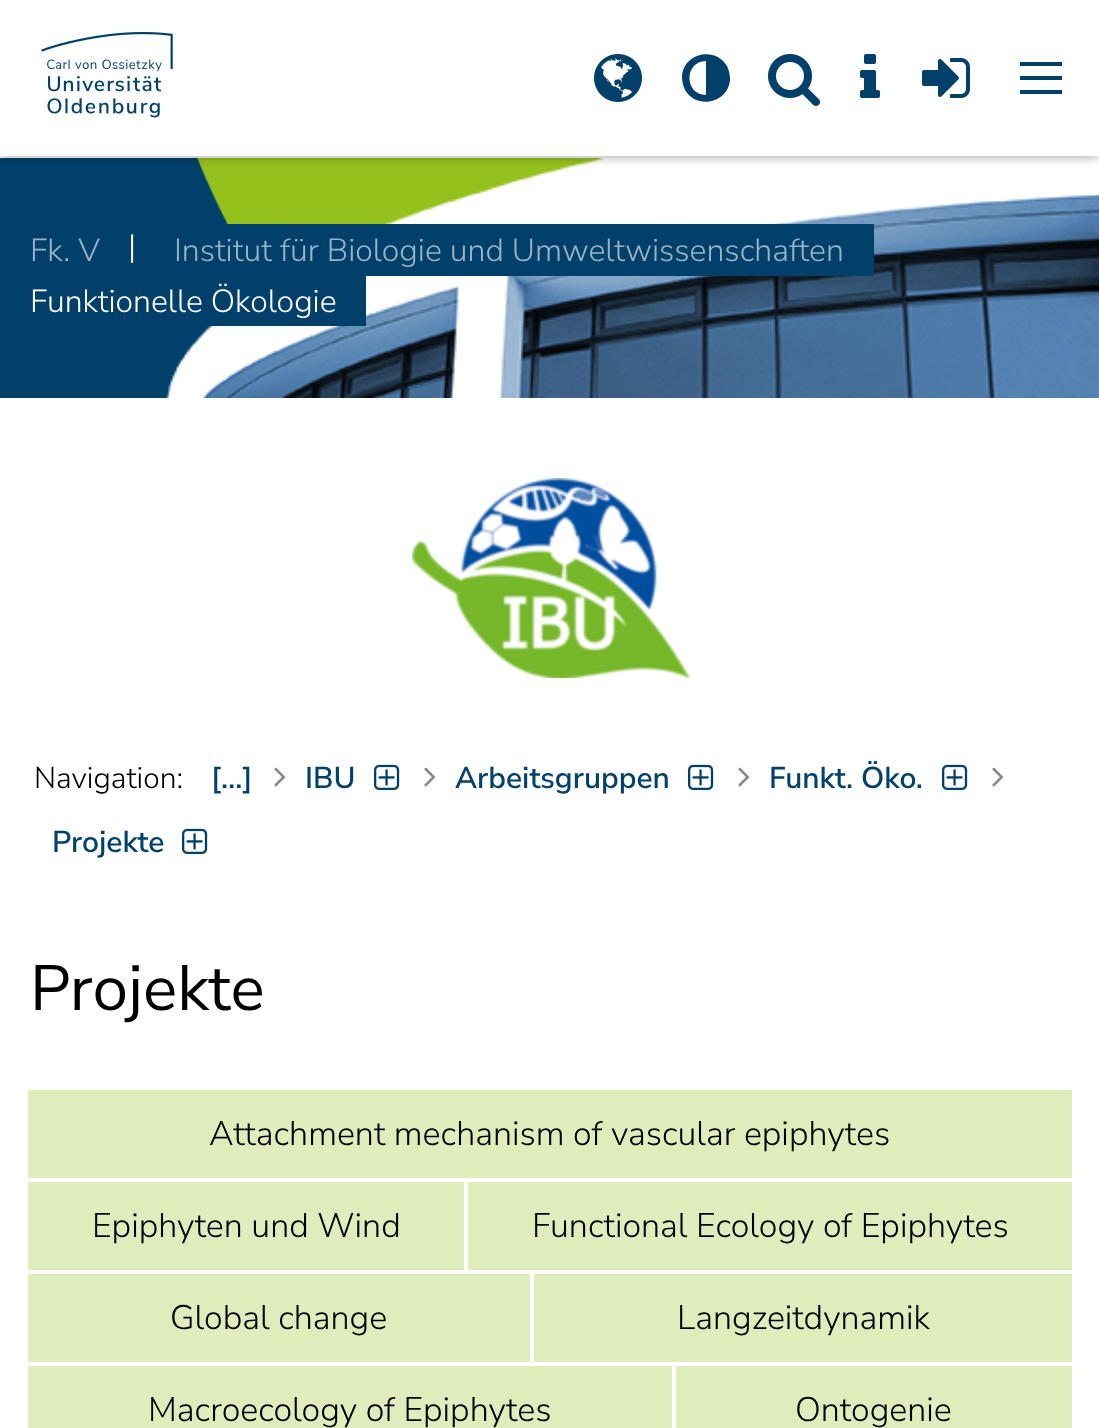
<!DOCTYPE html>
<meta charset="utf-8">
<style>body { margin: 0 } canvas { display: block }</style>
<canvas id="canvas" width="1099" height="1428"></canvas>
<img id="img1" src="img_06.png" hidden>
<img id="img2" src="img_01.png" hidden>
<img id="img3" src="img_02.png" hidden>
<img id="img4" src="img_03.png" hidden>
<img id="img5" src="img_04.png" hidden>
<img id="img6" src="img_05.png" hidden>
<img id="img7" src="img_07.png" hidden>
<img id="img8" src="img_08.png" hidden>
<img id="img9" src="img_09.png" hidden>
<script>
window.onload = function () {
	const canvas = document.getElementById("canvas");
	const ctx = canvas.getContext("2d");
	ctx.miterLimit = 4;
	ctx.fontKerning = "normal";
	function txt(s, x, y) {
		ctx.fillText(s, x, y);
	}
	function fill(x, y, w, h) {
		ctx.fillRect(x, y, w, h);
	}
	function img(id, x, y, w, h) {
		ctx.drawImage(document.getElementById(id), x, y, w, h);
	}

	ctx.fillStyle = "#FFFFFF";
	fill(0, 0, 1099, 1428);
	ctx.fillStyle = "#00406B";
	fill(0, 158, 228, 240);
	img("img1", 166, 158, 933, 240);
	ctx.save();
	ctx.beginPath();
	ctx.rect(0, 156, 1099, 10);
	ctx.clip();
	ctx.fillStyle = "rgba(0, 0, 0, 0.4)";
	ctx.filter = "blur(6px)";
	ctx.beginPath();
	ctx.rect(0, 0, 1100, 156);
	ctx.fill();
	ctx.filter = "none";
	ctx.restore();
	img("img2", 41, 32, 132, 86);
	img("img3", 594, 54, 48, 48);
	ctx.beginPath();
	ctx.moveTo(706, 95);
	ctx.lineTo(706, 61);
	ctx.bezierCurveTo(684, 61, 684, 95, 706, 95);
	ctx.closePath();
	ctx.moveTo(727, 66);
	ctx.bezierCurveTo(729, 70, 730, 75, 730, 80);
	ctx.bezierCurveTo(728, 103, 697, 110, 685, 90);
	ctx.bezierCurveTo(683, 86, 682, 81, 682, 76);
	ctx.bezierCurveTo(684, 53, 715, 46, 727, 66);
	ctx.closePath();
	ctx.fill();
	img("img4", 768, 54, 52, 52);
	img("img5", 860, 54, 20, 44);
	img("img6", 922, 58, 48, 40);
	fill(1020, 76, 42, 4);
	fill(1020, 62, 42, 4);
	fill(1020, 90, 42, 4);
	fill(227, 224, 647, 52);
	fill(209, 276, 157, 50);
	img("img7", 412, 478, 278, 200);
	img("img8", 274, 767, 12, 20);
	img("img9", 374, 764, 26, 26);
	img("img8", 424, 767, 12, 20);
	img("img9", 688, 764, 26, 26);
	img("img8", 738, 767, 12, 20);
	img("img9", 942, 764, 26, 26);
	img("img8", 992, 767, 12, 20);
	img("img9", 182, 828, 26, 26);
	ctx.fillStyle = "#DFEDBB";
	fill(28, 1090, 1044, 88);
	ctx.fillStyle = "#DFECBB";
	fill(28, 1182, 436, 88);
	fill(468, 1182, 604, 88);
	fill(28, 1274, 502, 88);
	fill(534, 1274, 538, 88);
	fill(28, 1366, 644, 62);
	fill(676, 1366, 396, 62);
	ctx.font = "300 32px Nunito Sans";
	ctx.fillStyle = "#99B3C4";
	txt("Fk. V", 30, 261);
	ctx.fillStyle = "#FFFFFF";
	txt("|", 128, 257);
	ctx.fillStyle = "#99B3C4";
	txt("Institut für Biologie und Umweltwissenschaften", 174, 261);
	ctx.fillStyle = "#FFFFFF";
	txt("Funktionelle Ökologie", 30, 312);
	ctx.font = "600 30px Nunito Sans";
	ctx.fillStyle = "#00406B";
	txt("[…]", 211, 788);
	txt("IBU", 305, 788);
	txt("Arbeitsgruppen", 455, 788);
	txt("Funkt. Öko.", 769, 788);
	txt("Projekte", 52, 852);
	ctx.font = "300 30px Nunito Sans";
	ctx.fillStyle = "#000000";
	txt("Navigation:", 34, 788);
	ctx.font = "64px Nunito Sans";
	txt("Projekte", 30, 1010);
	ctx.font = "300 34px Nunito Sans";
	txt("Attachment mechanism of vascular epiphytes", 209, 1145);
	txt("Epiphyten und Wind", 92, 1237);
	txt("Functional Ecology of Epiphytes", 532, 1237);
	txt("Global change", 170, 1329);
	txt("Langzeitdynamik", 677, 1329);
	txt("Macroecology of Epiphytes", 148, 1421);
	txt("Ontogenie", 795, 1421);
};
</script>
